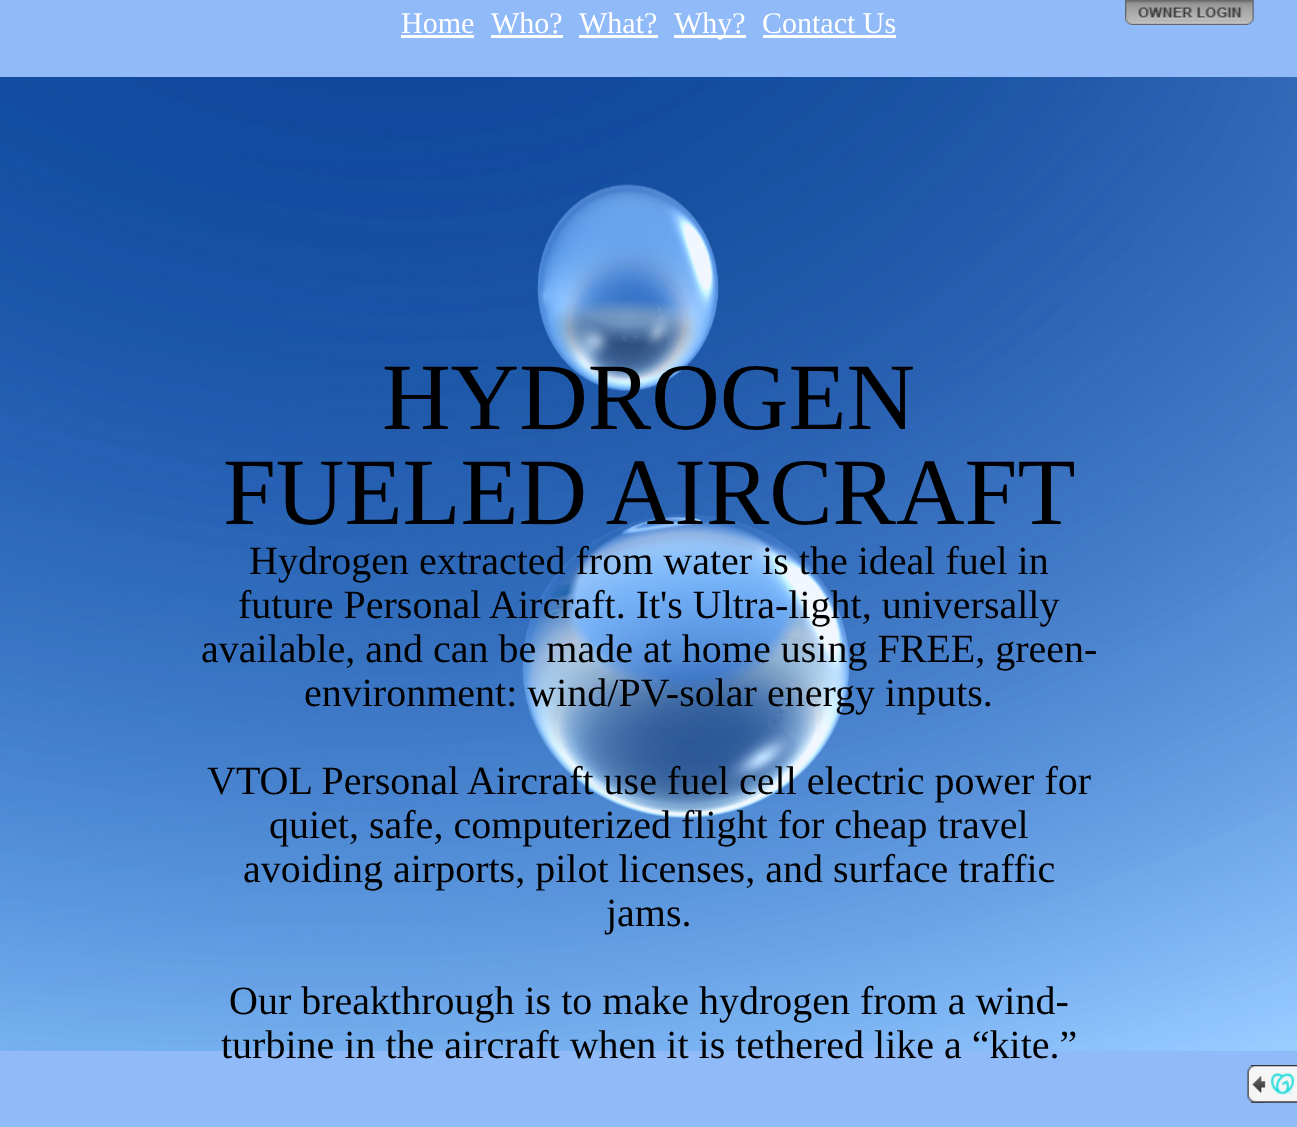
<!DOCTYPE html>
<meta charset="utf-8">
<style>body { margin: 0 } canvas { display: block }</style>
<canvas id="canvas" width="1297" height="1127"></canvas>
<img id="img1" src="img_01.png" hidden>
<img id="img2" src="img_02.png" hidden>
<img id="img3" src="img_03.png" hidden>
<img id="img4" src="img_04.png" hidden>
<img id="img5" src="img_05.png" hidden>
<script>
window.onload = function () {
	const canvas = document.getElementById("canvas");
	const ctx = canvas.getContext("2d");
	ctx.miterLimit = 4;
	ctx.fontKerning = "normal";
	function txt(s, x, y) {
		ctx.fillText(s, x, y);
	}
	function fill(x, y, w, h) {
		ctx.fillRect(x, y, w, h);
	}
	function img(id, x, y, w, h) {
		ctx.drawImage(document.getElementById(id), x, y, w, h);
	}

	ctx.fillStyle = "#91BAF8";
	fill(0, 0, 1297, 1127);
	ctx.fillStyle = "#FFFFFF";
	fill(401, 35, 73, 3);
	fill(491, 35, 72, 3);
	fill(579, 35, 79, 3);
	fill(674, 35, 72, 3);
	fill(763, 35, 133, 3);
	img("img1", 1125, 0, 129, 25);
	img("img2", 1251, 1065, 46, 37);
	ctx.fillStyle = "#4B5565";
	fill(1251, 1102, 46, 1);
	img("img3", 1247, 1066, 19, 37);
	img("img4", 1270, 1072, 25, 23);
	img("img5", 0, 77, 1297, 974);
	ctx.font = "30px Liberation Serif";
	ctx.fillStyle = "#FFFFFF";
	txt("Home", 401, 33);
	txt("Who?", 491, 33);
	txt("What?", 579, 33);
	txt("Why?", 674, 33);
	txt("Contact Us", 762, 33);
	ctx.font = "95px Liberation Serif";
	ctx.fillStyle = "#000000";
	txt("HYDROGEN", 382, 429);
	txt("FUELED AIRCRAFT", 223, 524);
	ctx.font = "40px Liberation Serif";
	txt("Hydrogen extracted from water is the ideal fuel in", 249, 574);
	txt("future Personal Aircraft. It's Ultra-light, universally", 238, 618);
	txt("available, and can be made at home using FREE, green-", 201, 662);
	txt("environment: wind/PV-solar energy inputs.", 304, 706);
	txt("VTOL Personal Aircraft use fuel cell electric power for", 207, 794);
	txt("quiet, safe, computerized flight for cheap travel", 269, 838);
	txt("avoiding airports, pilot licenses, and surface traffic", 243, 882);
	txt("jams.", 606, 926);
	txt("Our breakthrough is to make hydrogen from a wind-", 229, 1014);
	txt("turbine in the aircraft when it is tethered like a “kite.”", 221, 1058);
};
</script>
